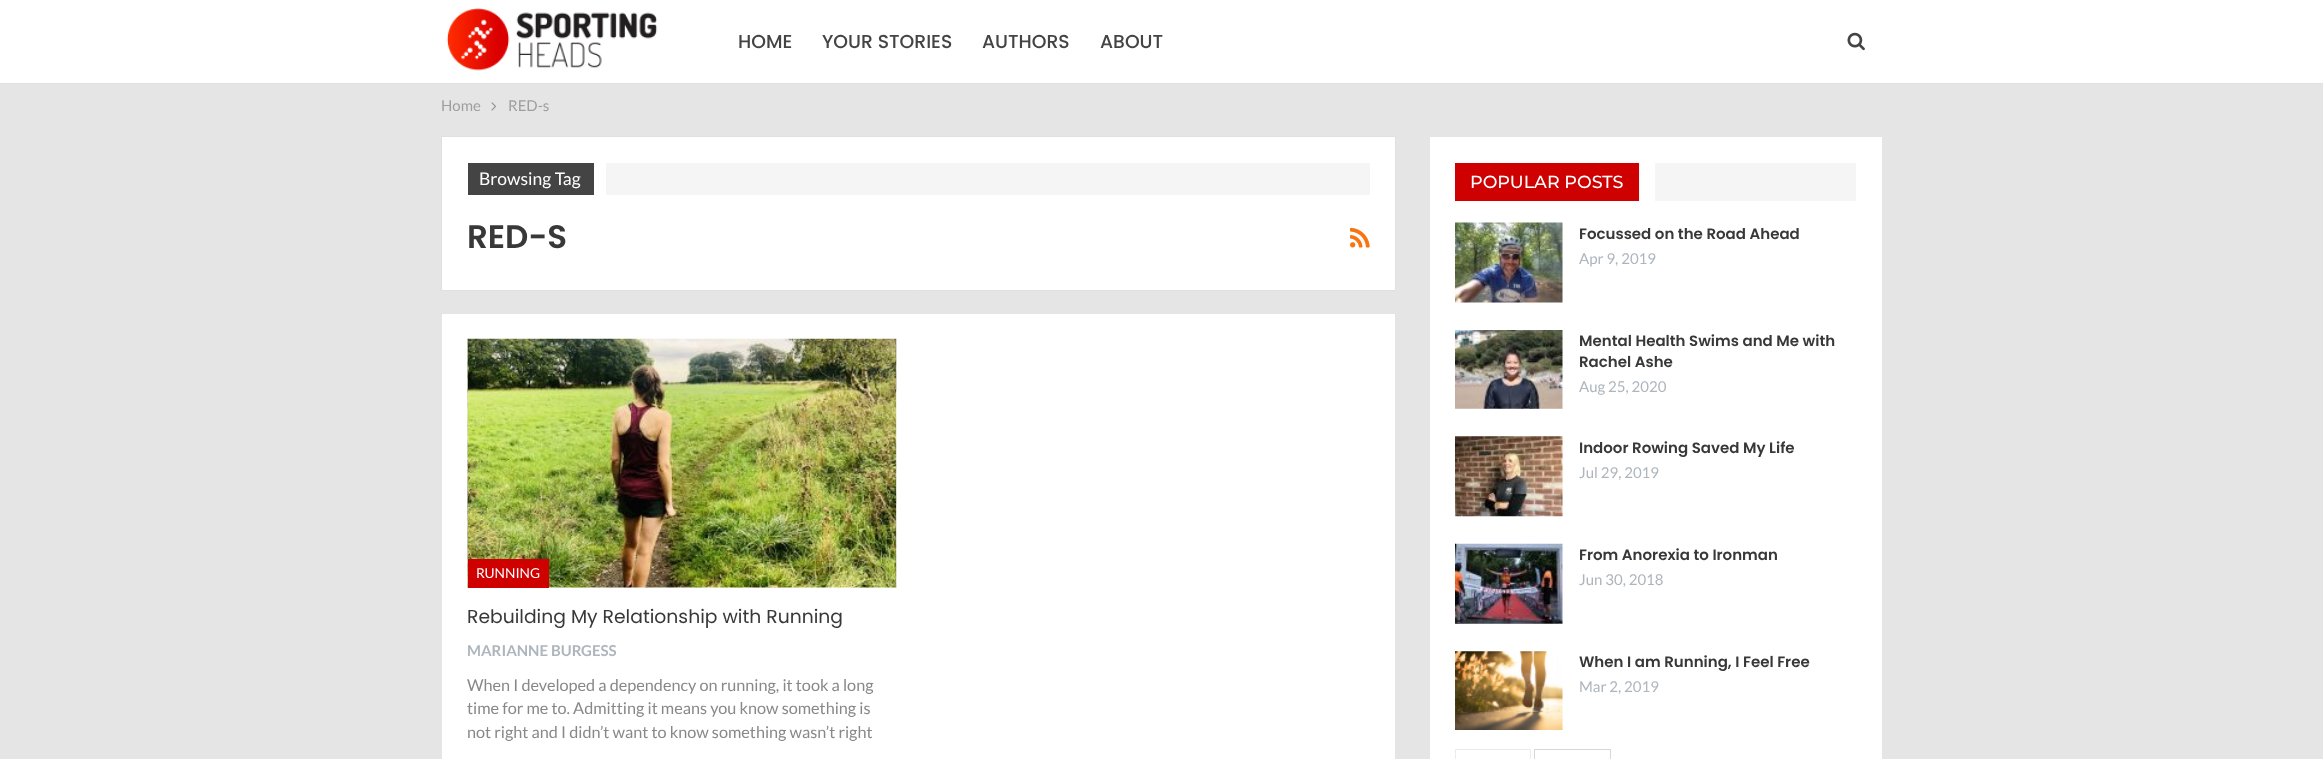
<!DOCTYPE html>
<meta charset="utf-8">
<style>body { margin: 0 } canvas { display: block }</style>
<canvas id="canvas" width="2323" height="759"></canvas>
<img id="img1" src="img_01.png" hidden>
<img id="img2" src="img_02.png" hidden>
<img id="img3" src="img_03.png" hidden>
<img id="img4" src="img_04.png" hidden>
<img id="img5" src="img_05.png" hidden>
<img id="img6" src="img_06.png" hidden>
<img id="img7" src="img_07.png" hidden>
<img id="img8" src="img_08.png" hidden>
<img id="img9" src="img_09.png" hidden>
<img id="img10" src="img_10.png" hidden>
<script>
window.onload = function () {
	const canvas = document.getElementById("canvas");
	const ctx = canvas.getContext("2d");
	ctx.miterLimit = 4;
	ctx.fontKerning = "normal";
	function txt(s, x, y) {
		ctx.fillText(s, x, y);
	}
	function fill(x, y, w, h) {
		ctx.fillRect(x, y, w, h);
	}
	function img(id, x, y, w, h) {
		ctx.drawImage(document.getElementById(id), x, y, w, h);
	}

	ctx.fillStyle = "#E5E5E5";
	fill(0, 0, 2323, 759);
	ctx.fillStyle = "#FFFFFF";
	fill(0, 0, 2323, 83);
	ctx.fillStyle = "#E0E0E0";
	fill(0, 83, 2323, 1);
	img("img1", 446, 8, 212, 63);
	img("img2", 1847, 32, 18, 19);
	img("img3", 491, 102, 6, 9);
	ctx.fillStyle = "#FFFFFF";
	ctx.beginPath();
	ctx.rect(441.5, 136.5, 954, 154);
	ctx.fill();
	ctx.strokeStyle = "#E0E0E0";
	ctx.stroke();
	ctx.fillStyle = "#444444";
	fill(468, 163, 126, 32);
	ctx.fillStyle = "#F5F5F5";
	fill(606, 163, 764, 32);
	img("img4", 1350, 227, 20, 21);
	ctx.fillStyle = "#FFFFFF";
	fill(442, 314, 953, 445);
	img("img5", 467, 338, 430, 250);
	ctx.fillStyle = "#CE0000";
	fill(468, 559, 81, 29);
	ctx.fillStyle = "#FFFFFF";
	fill(1430, 137, 452, 622);
	ctx.fillStyle = "#CE0000";
	fill(1455, 163, 184, 38);
	ctx.fillStyle = "#F5F5F5";
	fill(1639, 163, 217, 38);
	ctx.fillStyle = "#FFFFFF";
	fill(1640, 163, 15, 38);
	img("img6", 1455, 222, 108, 81);
	img("img7", 1455, 330, 108, 79);
	img("img8", 1455, 436, 108, 81);
	img("img9", 1455, 543, 108, 81);
	img("img10", 1455, 651, 108, 79);
	ctx.strokeStyle = "#ECECEC";
	ctx.strokeRect(1455.5, 749.5, 75, 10);
	ctx.strokeStyle = "#D8D8D8";
	ctx.strokeRect(1534.5, 749.5, 76, 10);
	ctx.font = "500 18.75px Poppins";
	ctx.fillStyle = "#444444";
	txt("HOME", 738, 48);
	txt("YOUR STORIES", 822, 48);
	txt("AUTHORS", 982, 48);
	txt("ABOUT", 1100, 48);
	ctx.font = "15px Lato";
	ctx.fillStyle = "#9E9E9E";
	txt("Home", 441, 111);
	txt("RED-s", 508, 111);
	ctx.font = "17.5px Lato";
	ctx.fillStyle = "#FFFFFF";
	txt("Browsing Tag", 479, 185);
	ctx.font = "600 32.5px Poppins";
	ctx.fillStyle = "#383838";
	txt("RED-S", 467, 248);
	ctx.font = "13.75px Lato";
	ctx.fillStyle = "#FFFFFF";
	txt("RUNNING", 476, 578);
	ctx.font = "18.75px Poppins";
	ctx.fillStyle = "#383838";
	txt("Rebuilding My Relationship with Running", 467, 623);
	ctx.font = "bold 15px Lato";
	ctx.fillStyle = "#ADB5BD";
	txt("MARIANNE BURGESS", 467, 656);
	ctx.font = "16.25px Lato";
	ctx.fillStyle = "#888888";
	txt("When I developed a dependency on running, it took a long", 467, 691);
	txt("time for me to. Admitting it means you know something is", 467, 714);
	txt("not right and I didn’t want to know something wasn’t right", 467, 738);
	ctx.font = "100 17.5px Montserrat";
	ctx.fillStyle = "#FFFFFF";
	txt("POPULAR POSTS", 1470, 188);
	ctx.font = "600 15px Poppins";
	ctx.fillStyle = "#383838";
	txt("Focussed on the Road Ahead", 1579, 239);
	ctx.font = "15px Lato";
	ctx.fillStyle = "#ADB5BD";
	txt("Apr 9, 2019", 1579, 264);
	ctx.font = "600 15px Poppins";
	ctx.fillStyle = "#383838";
	txt("Mental Health Swims and Me with", 1579, 346);
	txt("Rachel Ashe", 1579, 367);
	ctx.font = "15px Lato";
	ctx.fillStyle = "#ADB5BD";
	txt("Aug 25, 2020", 1579, 392);
	ctx.font = "600 15px Poppins";
	ctx.fillStyle = "#383838";
	txt("Indoor Rowing Saved My Life", 1579, 453);
	ctx.font = "15px Lato";
	ctx.fillStyle = "#ADB5BD";
	txt("Jul 29, 2019", 1579, 478);
	ctx.font = "600 15px Poppins";
	ctx.fillStyle = "#383838";
	txt("From Anorexia to Ironman", 1579, 560);
	ctx.font = "15px Lato";
	ctx.fillStyle = "#ADB5BD";
	txt("Jun 30, 2018", 1579, 585);
	ctx.font = "600 15px Poppins";
	ctx.fillStyle = "#383838";
	txt("When I am Running, I Feel Free", 1579, 667);
	ctx.font = "15px Lato";
	ctx.fillStyle = "#ADB5BD";
	txt("Mar 2, 2019", 1579, 692);
};
</script>
